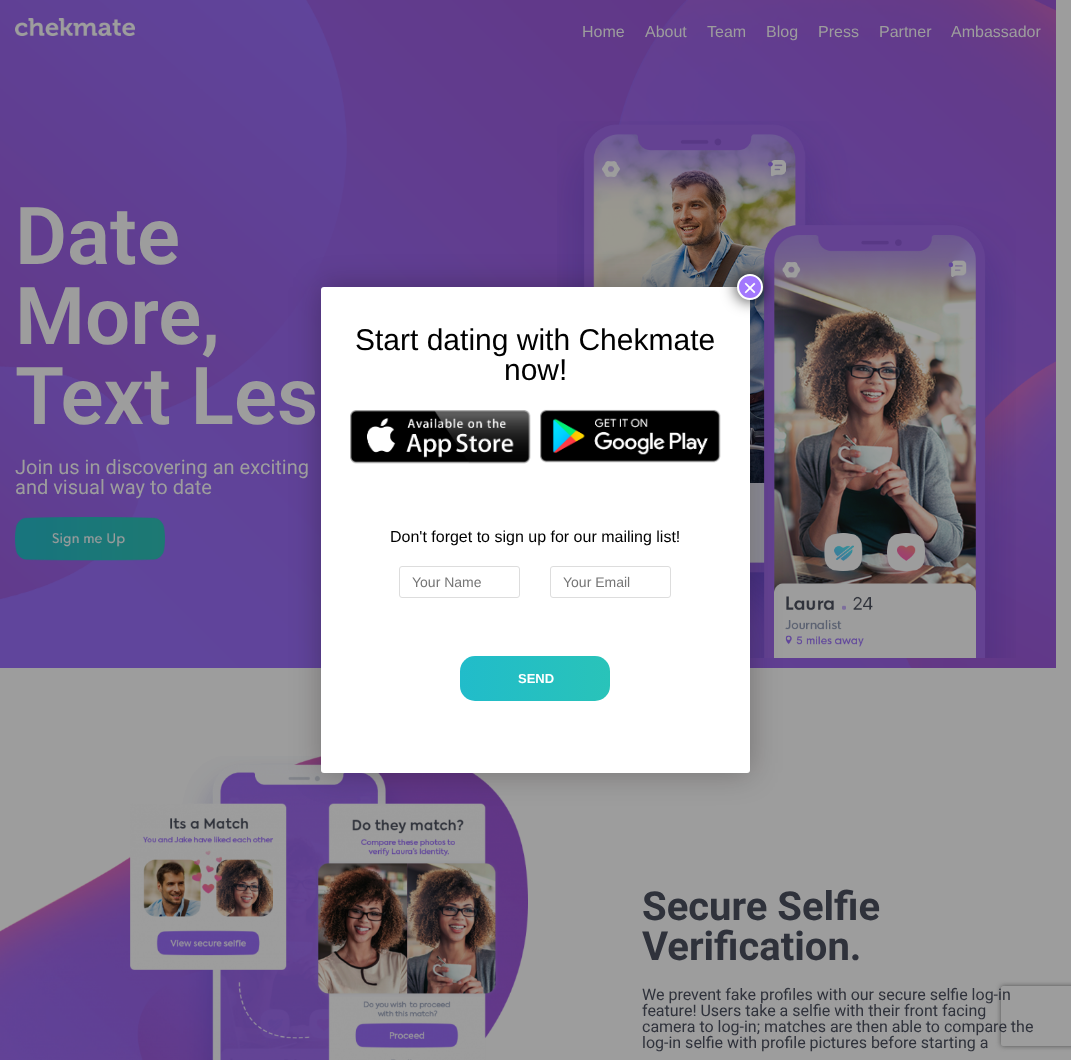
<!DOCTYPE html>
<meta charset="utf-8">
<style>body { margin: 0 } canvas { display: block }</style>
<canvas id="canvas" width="1071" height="1060"></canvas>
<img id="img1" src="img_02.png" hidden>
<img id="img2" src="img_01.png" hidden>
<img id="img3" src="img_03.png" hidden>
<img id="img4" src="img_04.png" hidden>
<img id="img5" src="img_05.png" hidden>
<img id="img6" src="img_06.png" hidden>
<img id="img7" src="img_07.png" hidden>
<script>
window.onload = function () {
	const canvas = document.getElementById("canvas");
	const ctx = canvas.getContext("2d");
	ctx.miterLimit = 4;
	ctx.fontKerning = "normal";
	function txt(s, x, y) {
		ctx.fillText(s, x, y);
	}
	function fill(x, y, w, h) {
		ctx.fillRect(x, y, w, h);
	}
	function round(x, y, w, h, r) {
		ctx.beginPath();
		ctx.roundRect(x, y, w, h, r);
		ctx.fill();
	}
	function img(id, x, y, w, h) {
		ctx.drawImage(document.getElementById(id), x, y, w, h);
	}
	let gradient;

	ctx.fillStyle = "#9D9D9D";
	fill(0, 0, 1071, 1060);
	img("img1", 0, 0, 1056, 668);
	img("img2", 15, 18, 120, 18);
	img("img3", 15, 517, 150, 44);
	img("img4", 557, 121, 459, 537);
	img("img5", 0, 756, 528, 304);
	ctx.fillStyle = "rgba(10, 4, 4, 0.27)";
	ctx.filter = "blur(15px)";
	ctx.beginPath();
	ctx.roundRect(321, 287, 429, 486, 3);
	ctx.fill();
	ctx.filter = "none";
	ctx.fillStyle = "#FFFFFF";
	round(321, 287, 429, 486, 3);
	ctx.fillStyle = "rgba(2, 2, 2, 0.75)";
	ctx.filter = "blur(7.5px)";
	ctx.beginPath();
	ctx.roundRect(736, 273, 28, 28, 14);
	ctx.fill();
	ctx.filter = "none";
	ctx.fillStyle = "#A277FD";
	ctx.beginPath();
	ctx.arc(750, 287, 12, 0, Math.PI * 2);
	ctx.fill();
	ctx.strokeStyle = "#FFFFFF";
	ctx.lineWidth = 2;
	ctx.stroke();
	img("img6", 350, 410, 181, 54);
	img("img7", 540, 409, 181, 54);
	ctx.beginPath();
	ctx.roundRect(399.5, 566.5, 120, 31, 2.5);
	ctx.strokeStyle = "#DDDDDD";
	ctx.lineWidth = 1;
	ctx.stroke();
	ctx.beginPath();
	ctx.roundRect(550.5, 566.5, 120, 31, 2.5);
	ctx.stroke();
	gradient = ctx.createLinearGradient(460, 679, 610, 679);
	gradient.addColorStop(0, "#21BCCA");
	gradient.addColorStop(1, "#29C3B9");
	ctx.fillStyle = gradient;
	round(460, 656, 150, 45, 15);
	ctx.save();
	ctx.beginPath();
	ctx.moveTo(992, 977);
	ctx.lineTo(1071, 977);
	ctx.lineTo(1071, 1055);
	ctx.lineTo(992, 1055);
	ctx.closePath();
	ctx.moveTo(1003, 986);
	ctx.lineTo(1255, 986);
	ctx.bezierCurveTo(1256, 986, 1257, 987, 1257, 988);
	ctx.lineTo(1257, 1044);
	ctx.bezierCurveTo(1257, 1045, 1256, 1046, 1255, 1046);
	ctx.lineTo(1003, 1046);
	ctx.bezierCurveTo(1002, 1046, 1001, 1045, 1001, 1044);
	ctx.lineTo(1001, 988);
	ctx.bezierCurveTo(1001, 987, 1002, 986, 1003, 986);
	ctx.closePath();
	ctx.clip("evenodd");
	ctx.fillStyle = "#515151";
	ctx.filter = "blur(2.5px)";
	ctx.beginPath();
	ctx.roundRect(1001, 986, 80, 60, 2);
	ctx.fill();
	ctx.filter = "none";
	ctx.restore();
	ctx.font = "16px Liberation Sans";
	ctx.fillStyle = "#9D9D9D";
	txt("Home", 582, 37);
	txt("About", 645, 37);
	txt("Team", 707, 37);
	txt("Blog", 766, 37);
	txt("Press", 818, 37);
	txt("Partner", 879, 37);
	txt("Ambassador", 951, 37);
	ctx.font = "600 80px Roboto";
	txt("Date", 15, 264);
	txt("More,", 15, 344);
	txt("Text Les", 15, 424);
	ctx.font = "20px Roboto";
	txt("Join us in discovering an exciting", 15, 474);
	txt("and visual way to date", 15, 494);
	ctx.font = "bold 40px Roboto";
	ctx.fillStyle = "#2F323B";
	txt("Secure Selfie", 642, 920);
	txt("Verification.", 642, 960);
	ctx.font = "16px Roboto";
	txt("We prevent fake profiles with our secure selfie log-in", 642, 1000);
	txt("feature! Users take a selfie with their front facing", 642, 1016);
	txt("camera to log-in; matches are then able to compare the", 642, 1032);
	txt("log-in selfie with profile pictures before starting a", 642, 1048);
	ctx.font = "24px Liberation Sans";
	ctx.fillStyle = "#FFFFFF";
	txt("×", 743, 296);
	ctx.font = "30px Liberation Sans";
	ctx.fillStyle = "#000000";
	txt("Start dating with Chekmate", 355, 350);
	txt("now!", 504, 380);
	ctx.font = "16px Liberation Sans";
	txt("Don't forget to sign up for our mailing list!", 390, 542);
	ctx.font = "14px Liberation Sans";
	ctx.fillStyle = "#757575";
	txt("Your Name", 412, 587);
	txt("Your Email", 563, 587);
	ctx.font = "bold 13px Liberation Sans";
	ctx.fillStyle = "#FFFFFF";
	txt("SEND", 518, 683);
};
</script>
